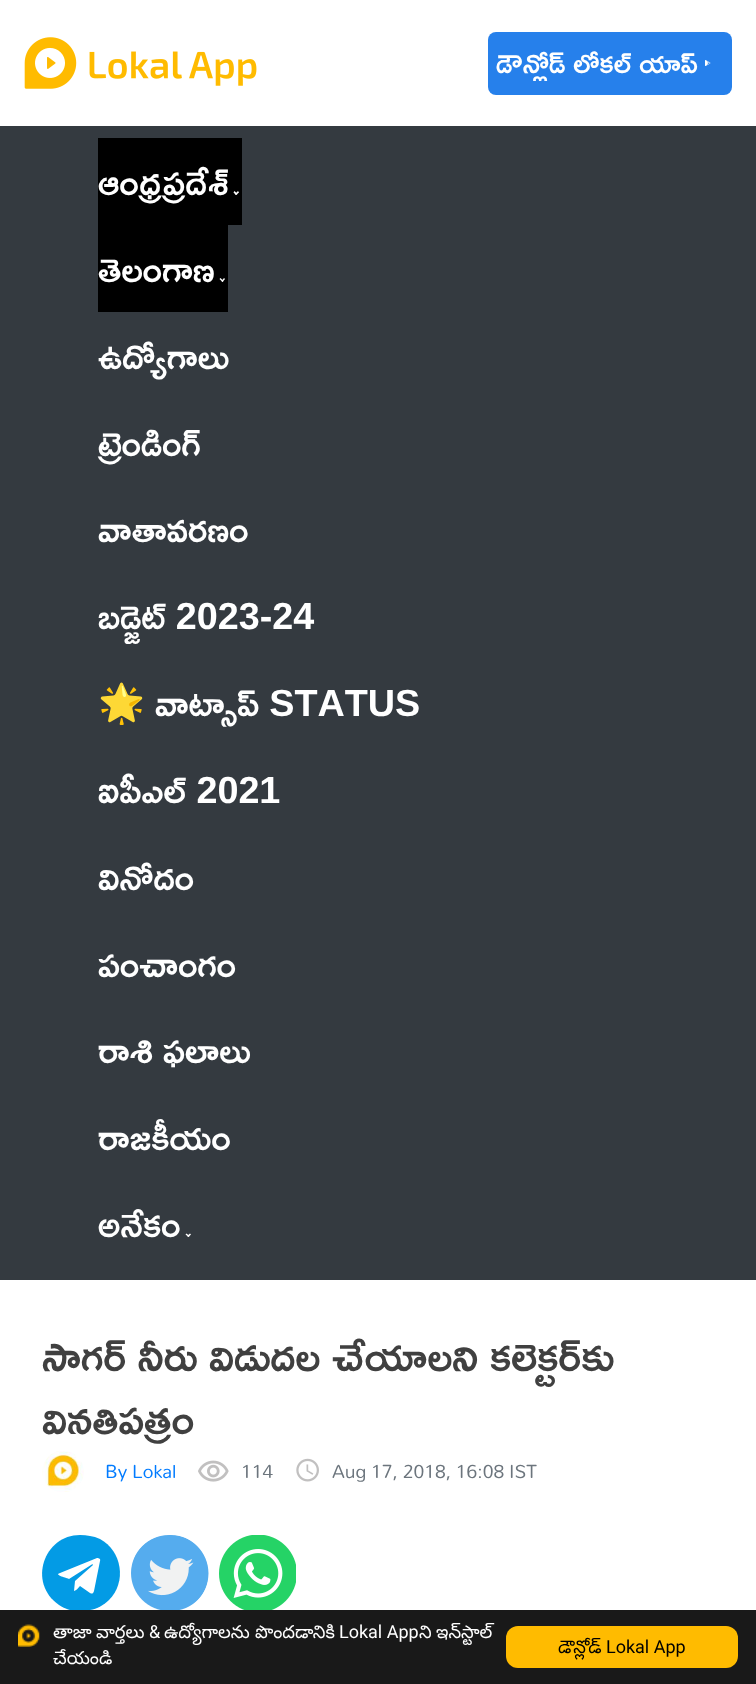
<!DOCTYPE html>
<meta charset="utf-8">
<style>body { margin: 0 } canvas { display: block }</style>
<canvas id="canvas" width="756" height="1684"></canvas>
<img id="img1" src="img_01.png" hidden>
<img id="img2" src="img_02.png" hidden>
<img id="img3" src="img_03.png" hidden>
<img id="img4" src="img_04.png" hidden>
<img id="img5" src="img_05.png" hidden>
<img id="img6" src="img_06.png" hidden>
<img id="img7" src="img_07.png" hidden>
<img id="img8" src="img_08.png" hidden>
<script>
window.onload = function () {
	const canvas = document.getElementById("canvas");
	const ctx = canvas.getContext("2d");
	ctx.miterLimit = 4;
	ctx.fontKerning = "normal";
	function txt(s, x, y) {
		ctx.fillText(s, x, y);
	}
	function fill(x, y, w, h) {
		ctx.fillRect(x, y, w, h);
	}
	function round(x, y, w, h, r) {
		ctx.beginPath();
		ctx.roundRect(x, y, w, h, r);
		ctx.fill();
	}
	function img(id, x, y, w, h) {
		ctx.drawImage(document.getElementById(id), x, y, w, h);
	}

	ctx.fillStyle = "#FFFFFF";
	fill(0, 0, 756, 1684);
	img("img1", 24, 37, 233, 52);
	ctx.fillStyle = "#2680EB";
	round(488, 32, 244, 63, 8);
	img("img2", 705, 60, 6, 6);
	ctx.fillStyle = "#343A40";
	fill(0, 126, 756, 1154);
	ctx.fillStyle = "#000000";
	fill(98, 138, 144, 87);
	ctx.fillStyle = "#FFFFFF";
	ctx.beginPath();
	ctx.moveTo(238, 191);
	ctx.lineTo(239, 192.5);
	ctx.lineTo(236, 195);
	ctx.lineTo(235, 194);
	ctx.closePath();
	ctx.fill();
	ctx.beginPath();
	ctx.moveTo(234.5, 191);
	ctx.lineTo(237.5, 194);
	ctx.lineTo(236, 195);
	ctx.lineTo(233.5, 192.5);
	ctx.closePath();
	ctx.fill();
	ctx.fillStyle = "#000000";
	fill(98, 225, 130, 87);
	ctx.fillStyle = "#FFFFFF";
	ctx.beginPath();
	ctx.moveTo(224, 278);
	ctx.lineTo(225, 279);
	ctx.lineTo(222.5, 282);
	ctx.lineTo(221.5, 281);
	ctx.closePath();
	ctx.fill();
	ctx.beginPath();
	ctx.moveTo(220.5, 278);
	ctx.lineTo(223.5, 281);
	ctx.lineTo(222.5, 282);
	ctx.lineTo(219.5, 279);
	ctx.closePath();
	ctx.fill();
	ctx.beginPath();
	ctx.moveTo(190, 1233.5);
	ctx.lineTo(191, 1234.5);
	ctx.lineTo(188.5, 1237);
	ctx.lineTo(187, 1236);
	ctx.closePath();
	ctx.fill();
	ctx.beginPath();
	ctx.moveTo(186.5, 1233.5);
	ctx.lineTo(189.5, 1236);
	ctx.lineTo(188.5, 1237);
	ctx.lineTo(185.5, 1234.5);
	ctx.closePath();
	ctx.fill();
	img("img3", 42, 1451, 42, 41);
	img("img4", 198, 1460, 31, 22);
	img("img5", 296, 1458, 23, 24);
	ctx.fillStyle = "#039BE5";
	ctx.beginPath();
	ctx.moveTo(80, 1535);
	ctx.bezierCurveTo(87, 1535, 93, 1536, 100, 1539);
	ctx.bezierCurveTo(122, 1551, 127, 1582, 109, 1600);
	ctx.bezierCurveTo(104, 1605, 97, 1609, 90, 1610);
	ctx.lineTo(82, 1611);
	ctx.bezierCurveTo(74, 1612, 65, 1609, 59, 1605);
	ctx.bezierCurveTo(27, 1583, 44, 1535, 80, 1535);
	ctx.closePath();
	ctx.fill();
	ctx.fillStyle = "#FFFFFF";
	ctx.beginPath();
	ctx.moveTo(60, 1573);
	ctx.lineTo(97, 1558);
	ctx.bezierCurveTo(99, 1558, 101, 1559, 100, 1561);
	ctx.lineTo(94, 1591);
	ctx.bezierCurveTo(93, 1594, 92, 1594, 90, 1593);
	ctx.lineTo(80, 1586);
	ctx.bezierCurveTo(79, 1587, 76, 1591, 74, 1591);
	ctx.lineTo(75, 1581);
	ctx.lineTo(93, 1565);
	ctx.bezierCurveTo(93, 1564, 92, 1564, 91, 1565);
	ctx.lineTo(69, 1579);
	ctx.bezierCurveTo(68, 1578, 53, 1575, 60, 1573);
	ctx.closePath();
	ctx.fill();
	img("img6", 131, 1535, 78, 75);
	img("img7", 219, 1535, 77, 75);
	ctx.fillStyle = "#191919";
	fill(0, 1610, 756, 74);
	img("img8", 18, 1624, 22, 23);
	ctx.fillStyle = "#FFBB00";
	round(506, 1626, 232, 42, 12);
	ctx.font = "29.25px Ramabhadra";
	ctx.fillStyle = "#FFFFFF";
	txt("డౌన్లోడ్ లోకల్ యాప్", 496, 73);
	ctx.font = "37.75px Ramabhadra";
	txt("ఆంధ్రప్రదేశ్", 98, 195);
	txt("తెలంగాణ", 98, 282);
	txt("ఉద్యోగాలు", 98, 369);
	txt("ట్రెండింగ్", 98, 456);
	txt("వాతావరణం", 98, 542);
	txt("బడ్జెట్ 2023-24", 98, 629);
	ctx.font = "37.75px Noto Color Emoji";
	txt("🌟", 98, 716);
	ctx.font = "37.75px Ramabhadra";
	txt("వాట్సాప్ STATUS", 155, 716);
	txt("ఐపీఎల్ 2021", 98, 803);
	txt("వినోదం", 98, 890);
	txt("పంచాంగం", 98, 977);
	txt("రాశి ఫలాలు", 98, 1063);
	txt("రాజకీయం", 98, 1150);
	txt("అనేకం", 98, 1237);
	ctx.font = "44px Ramabhadra";
	ctx.fillStyle = "#404040";
	txt("సాగర్ నీరు విడుదల చేయాలని కలెక్టర్‌కు", 42, 1371);
	txt("వినతిపత్రం", 42, 1434);
	ctx.font = "21px Mallanna";
	ctx.fillStyle = "#007BFF";
	txt("By Lokal", 105, 1478);
	ctx.fillStyle = "#6C757D";
	txt("114", 241, 1478);
	txt("Aug 17, 2018, 16:08 IST", 332, 1478);
	ctx.font = "18px Noto Sans Telugu";
	ctx.fillStyle = "#FFFFFF";
	txt("తాజా", 53, 1638);
	txt("వార్తలు", 96, 1638);
	ctx.font = "18px Roboto";
	txt("&", 149, 1638);
	ctx.font = "18px Noto Sans Telugu";
	txt("ఉద్యోగాలను", 164, 1638);
	txt("పొందడానికి", 255, 1638);
	ctx.font = "18px Roboto";
	txt("Lokal App", 339, 1638);
	ctx.font = "18px Noto Sans Telugu";
	txt("ని", 419, 1638);
	txt("ఇన్‌స్టాల్", 436, 1638);
	txt("చేయండి", 53, 1664);
	ctx.fillStyle = "#000000";
	txt("డౌన్లోడ్", 558, 1653);
	ctx.font = "18px Roboto";
	txt("Lokal App", 606, 1653);
};
</script>
